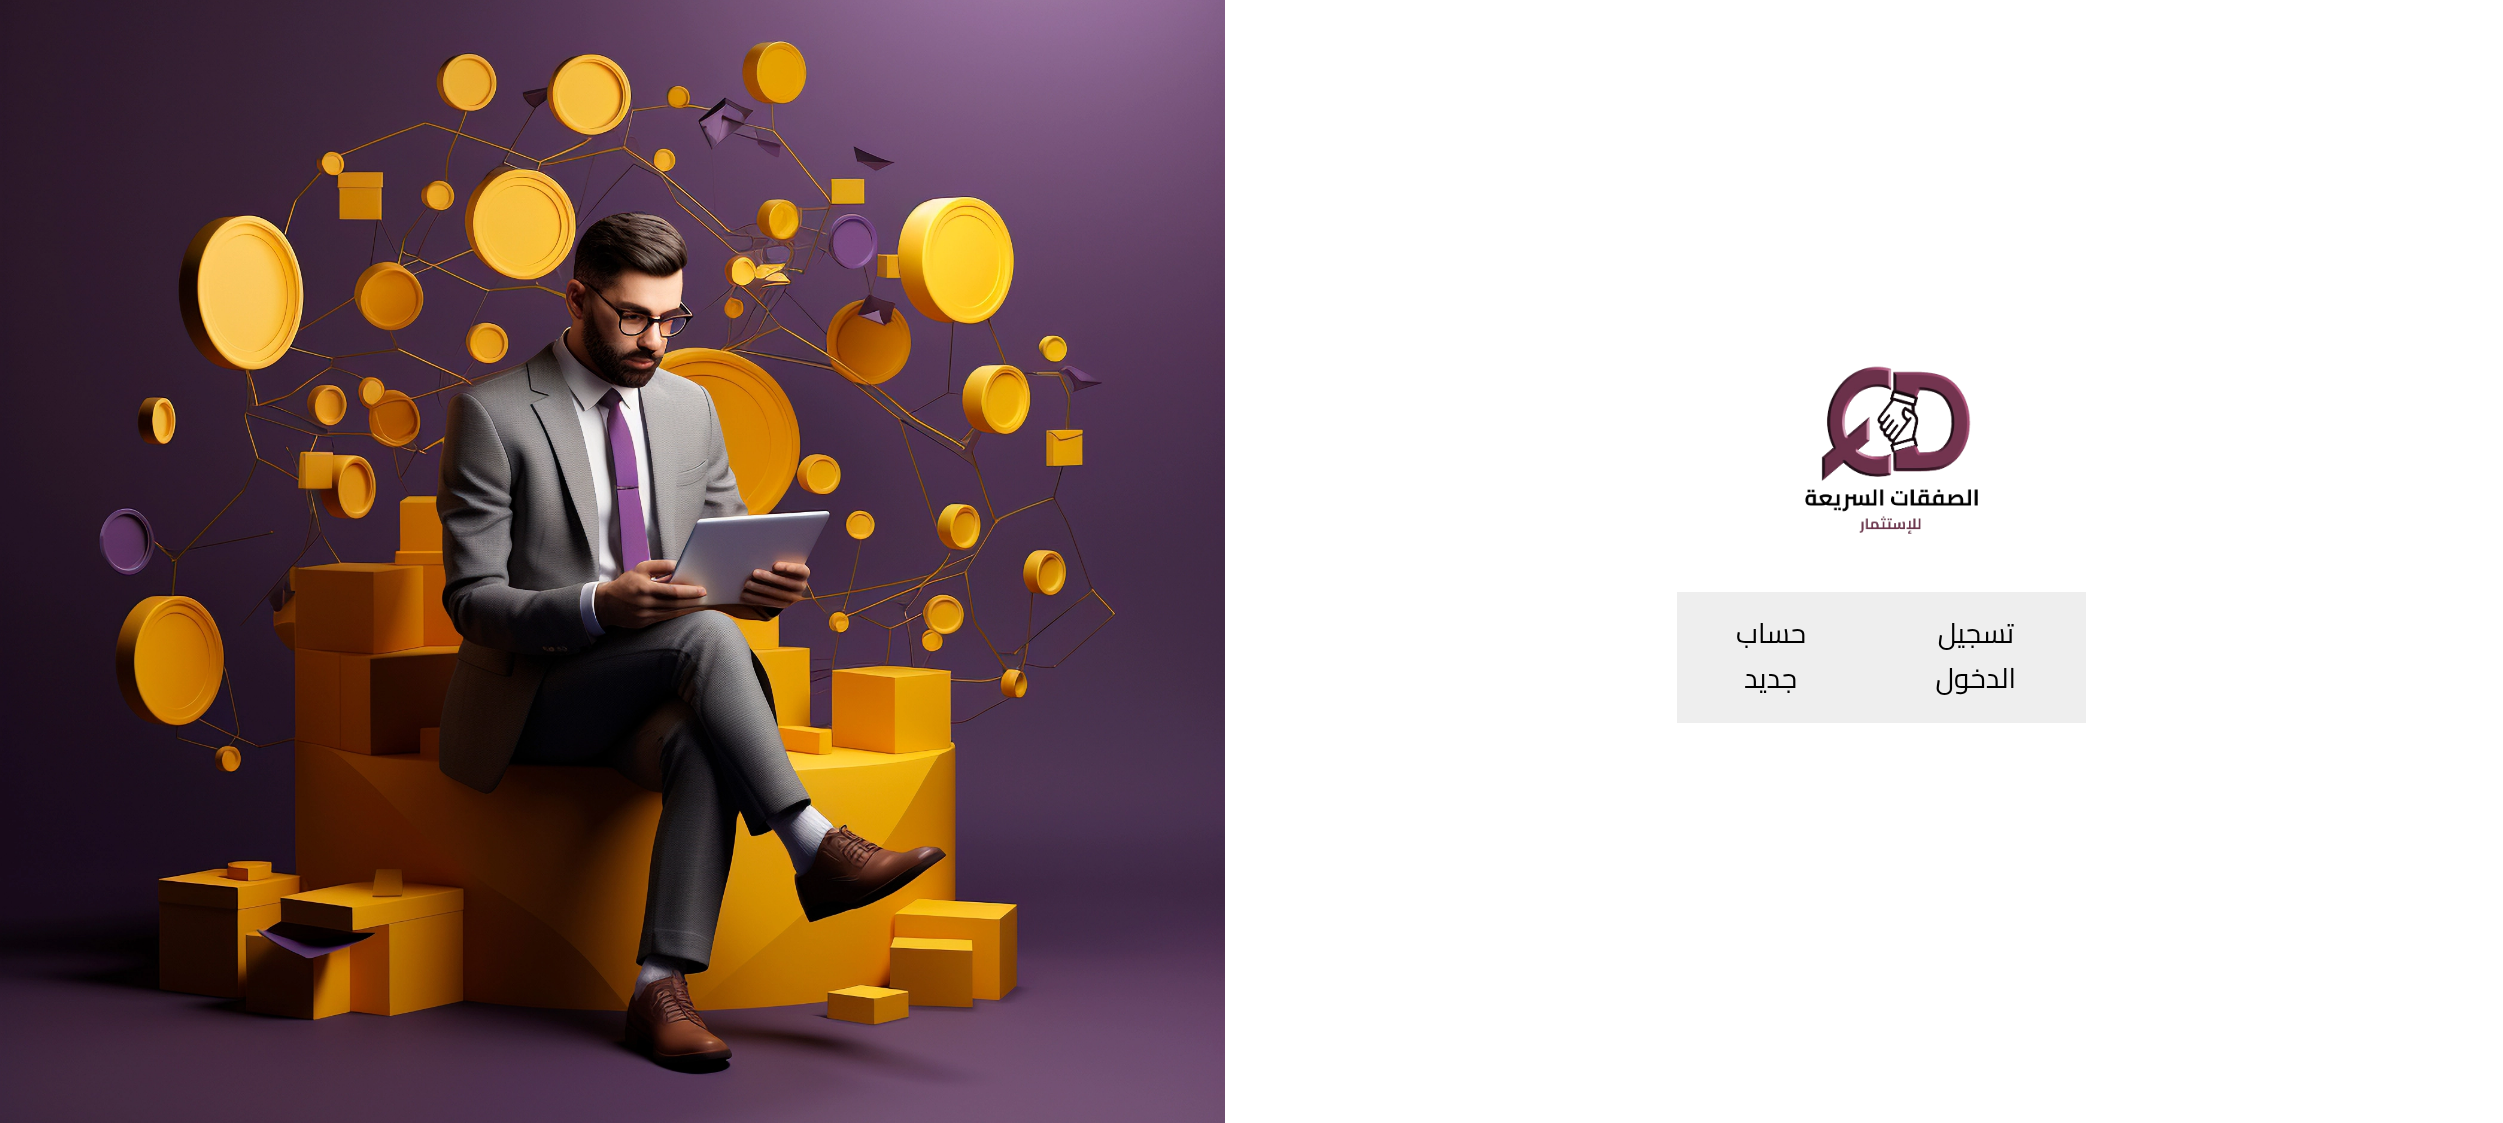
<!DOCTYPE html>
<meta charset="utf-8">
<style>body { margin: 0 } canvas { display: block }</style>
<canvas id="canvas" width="2503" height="1123"></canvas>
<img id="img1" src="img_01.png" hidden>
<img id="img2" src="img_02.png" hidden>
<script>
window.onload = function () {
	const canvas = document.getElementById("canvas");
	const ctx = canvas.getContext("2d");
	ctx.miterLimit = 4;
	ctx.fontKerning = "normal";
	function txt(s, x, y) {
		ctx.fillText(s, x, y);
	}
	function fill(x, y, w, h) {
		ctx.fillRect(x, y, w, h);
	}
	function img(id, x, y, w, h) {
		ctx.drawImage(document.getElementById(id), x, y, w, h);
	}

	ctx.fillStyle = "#FFFFFF";
	fill(0, 0, 2503, 1123);
	img("img1", 1805, 366, 173, 168);
	ctx.fillStyle = "#EEEEEE";
	fill(1677, 592, 409, 131);
	img("img2", 0, 0, 1225, 1123);
	ctx.direction = "rtl";
	ctx.font = "28px Cairo";
	ctx.fillStyle = "#000000";
	txt("تسجيل", 2014, 643);
	txt("الدخول", 2016, 688);
	txt("حساب", 1806, 643);
	txt("جديد", 1797, 688);
};
</script>
